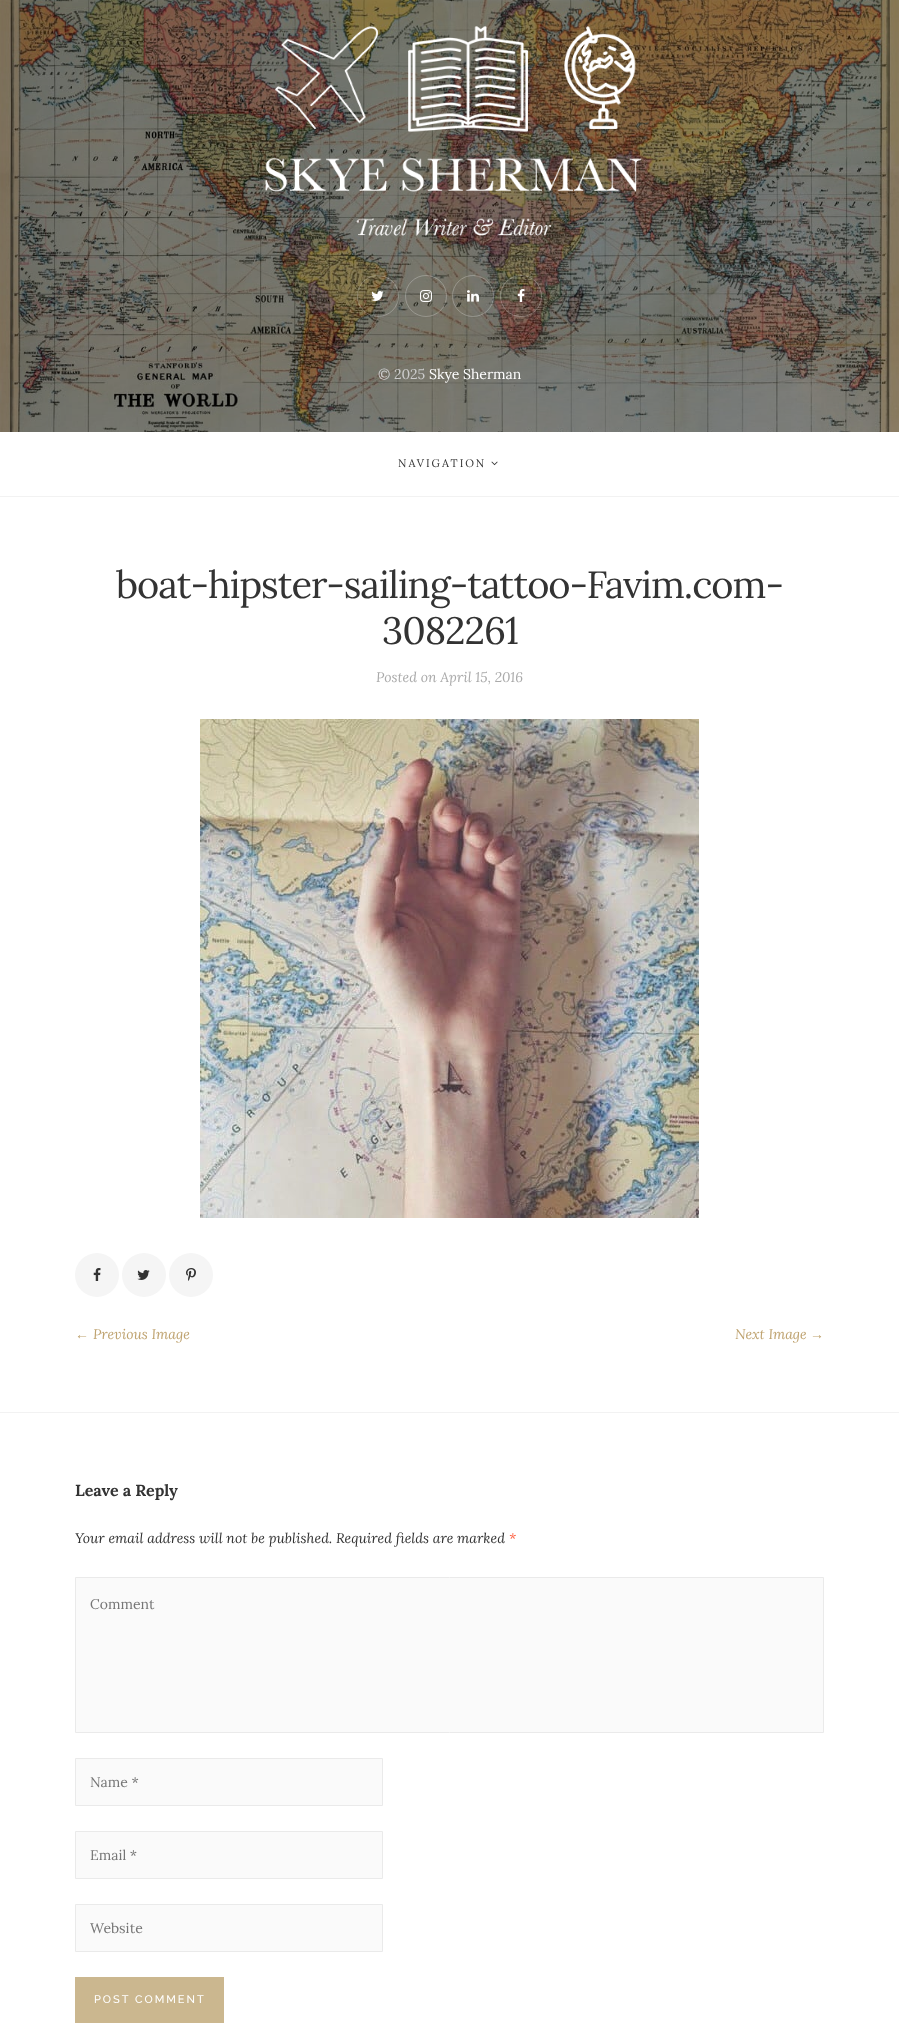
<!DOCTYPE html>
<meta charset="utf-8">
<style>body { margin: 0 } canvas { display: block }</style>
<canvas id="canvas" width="899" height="2027"></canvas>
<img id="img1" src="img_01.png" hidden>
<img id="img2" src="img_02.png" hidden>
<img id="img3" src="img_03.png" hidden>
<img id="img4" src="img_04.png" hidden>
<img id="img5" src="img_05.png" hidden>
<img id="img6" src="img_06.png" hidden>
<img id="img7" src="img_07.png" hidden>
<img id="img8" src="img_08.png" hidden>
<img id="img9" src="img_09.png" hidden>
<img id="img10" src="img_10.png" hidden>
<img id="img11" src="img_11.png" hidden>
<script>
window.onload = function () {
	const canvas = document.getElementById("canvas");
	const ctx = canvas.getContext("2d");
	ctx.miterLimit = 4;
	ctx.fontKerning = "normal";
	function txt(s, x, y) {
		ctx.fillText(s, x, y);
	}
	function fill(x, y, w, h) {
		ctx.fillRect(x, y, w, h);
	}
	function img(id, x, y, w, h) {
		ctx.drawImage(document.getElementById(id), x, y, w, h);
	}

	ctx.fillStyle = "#FFFFFF";
	fill(0, 0, 899, 2027);
	img("img1", 0, 0, 899, 432);
	img("img2", 265, 26, 377, 210);
	ctx.beginPath();
	ctx.arc(378, 296, 20.5, 0, Math.PI * 2);
	ctx.strokeStyle = "rgba(255, 255, 255, 0.25)";
	ctx.stroke();
	img("img3", 371, 291, 13, 10);
	ctx.beginPath();
	ctx.arc(426, 296, 20.5, 0, Math.PI * 2);
	ctx.stroke();
	img("img4", 420, 290, 12, 12);
	ctx.beginPath();
	ctx.arc(473, 296, 20.5, 0, Math.PI * 2);
	ctx.stroke();
	img("img5", 467, 290, 12, 12);
	ctx.beginPath();
	ctx.arc(521, 296, 20.5, 0, Math.PI * 2);
	ctx.stroke();
	img("img6", 517, 289, 8, 13);
	ctx.fillStyle = "#F2F2F2";
	fill(0, 496, 899, 1);
	img("img7", 491, 461, 7, 5);
	fill(0, 1412, 899, 1);
	img("img8", 200, 719, 499, 499);
	ctx.fillStyle = "#F5F5F5";
	ctx.beginPath();
	ctx.arc(97, 1275, 22, 0, Math.PI * 2);
	ctx.fill();
	img("img9", 93, 1268, 8, 13);
	ctx.beginPath();
	ctx.arc(144, 1275, 22, 0, Math.PI * 2);
	ctx.fill();
	img("img10", 137, 1270, 13, 10);
	ctx.beginPath();
	ctx.arc(191, 1275, 22, 0, Math.PI * 2);
	ctx.fill();
	img("img11", 186, 1268, 10, 13);
	ctx.fillStyle = "#FAFAFA";
	ctx.beginPath();
	ctx.rect(75.5, 1577.5, 748, 155);
	ctx.fill();
	ctx.strokeStyle = "#EAEAEA";
	ctx.stroke();
	ctx.beginPath();
	ctx.rect(75.5, 1758.5, 307, 47);
	ctx.fill();
	ctx.stroke();
	ctx.beginPath();
	ctx.rect(75.5, 1831.5, 307, 47);
	ctx.fill();
	ctx.stroke();
	ctx.beginPath();
	ctx.rect(75.5, 1904.5, 307, 47);
	ctx.fill();
	ctx.stroke();
	ctx.fillStyle = "#CBB78F";
	fill(75, 1977, 149, 46);
	ctx.font = "14px Lora";
	ctx.fillStyle = "#CCCCCC";
	txt("© 2025", 378, 379);
	ctx.fillStyle = "#FFFFFF";
	txt("Skye Sherman", 429, 379);
	ctx.letterSpacing = "2px";
	ctx.font = "11px Lora";
	ctx.fillStyle = "#333333";
	txt("NAVIGATION", 398, 467);
	ctx.letterSpacing = "-1px";
	ctx.font = "38px Lora";
	txt("boat-hipster-sailing-tattoo-Favim.com-", 116, 598);
	txt("3082261", 382, 644);
	ctx.letterSpacing = "0px";
	ctx.font = "italic 14px Lora";
	ctx.fillStyle = "#AAAAAA";
	txt("Posted on April 15, 2016", 376, 682);
	ctx.font = "italic 14px Liberation Serif";
	ctx.fillStyle = "#BFA370";
	txt("←", 75, 1339);
	ctx.font = "italic 14px Lora";
	txt("Previous Image", 93, 1339);
	txt("Next Image", 735, 1339);
	ctx.font = "italic 14px Liberation Serif";
	txt("→", 810, 1339);
	ctx.font = "bold 16px Lora";
	ctx.fillStyle = "#333333";
	txt("Leave a Reply", 75, 1496);
	ctx.font = "italic 14px Lora";
	txt("Your email address will not be published. Required fields are marked", 75, 1543);
	ctx.fillStyle = "#FF5A3A";
	txt("*", 509, 1543);
	ctx.font = "14px Lora";
	ctx.fillStyle = "#757575";
	txt("Comment", 90, 1609);
	txt("Name *", 90, 1787);
	txt("Email *", 90, 1860);
	txt("Website", 90, 1933);
	ctx.letterSpacing = "2px";
	ctx.font = "500 11px Raleway";
	ctx.fillStyle = "#FFFFFF";
	txt("POST COMMENT", 94, 2003);
};
</script>
